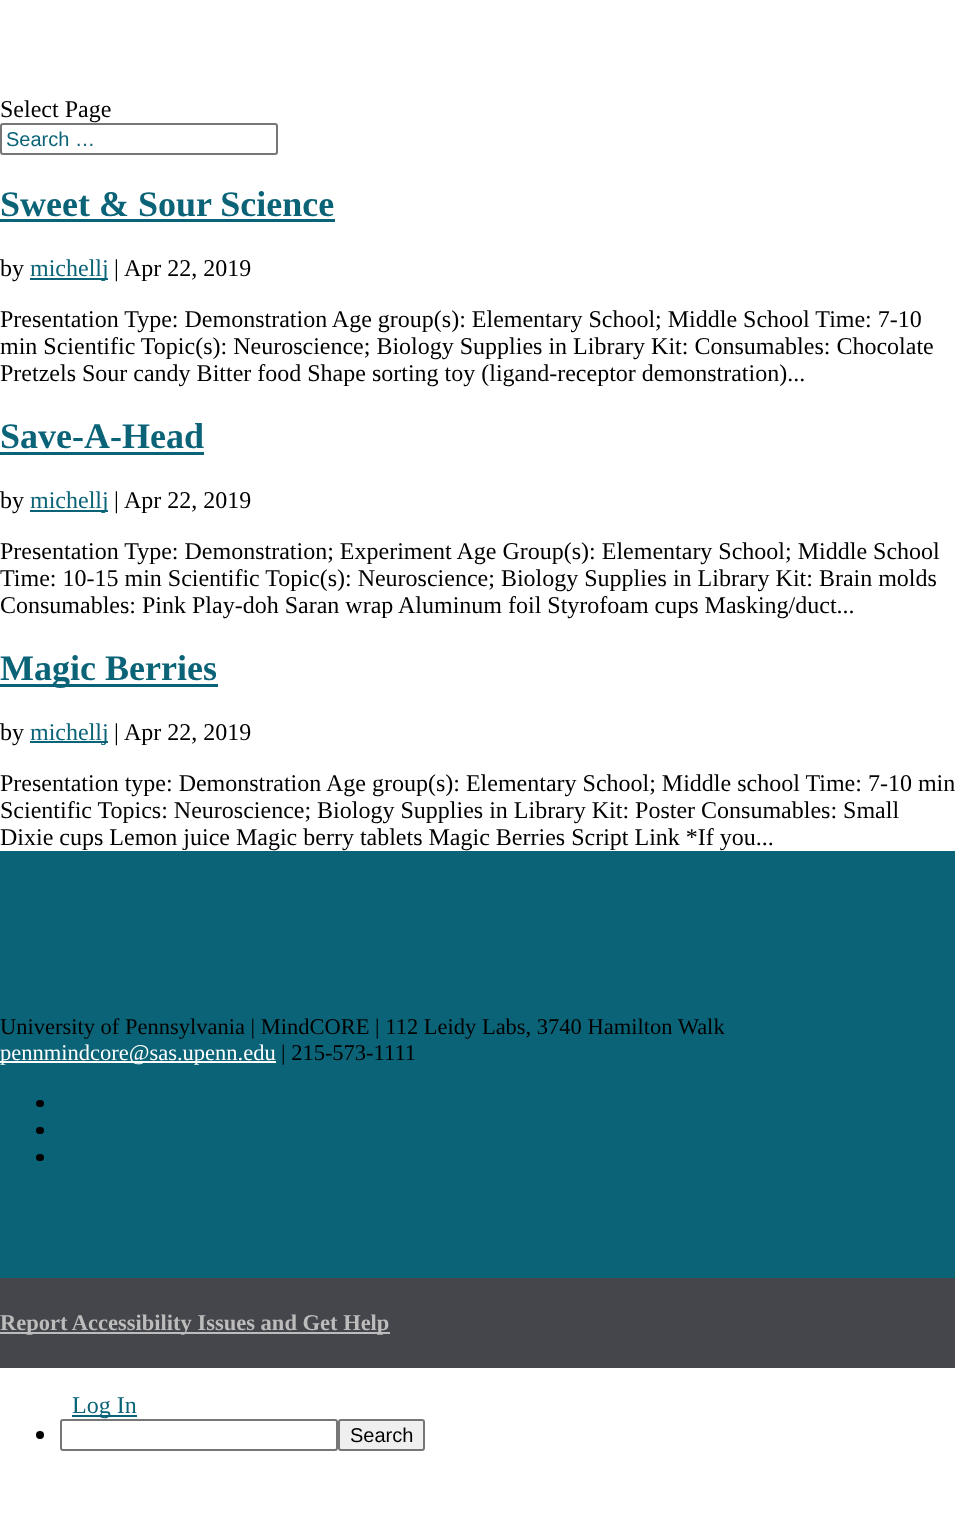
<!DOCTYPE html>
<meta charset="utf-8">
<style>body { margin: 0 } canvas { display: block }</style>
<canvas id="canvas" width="955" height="1521"></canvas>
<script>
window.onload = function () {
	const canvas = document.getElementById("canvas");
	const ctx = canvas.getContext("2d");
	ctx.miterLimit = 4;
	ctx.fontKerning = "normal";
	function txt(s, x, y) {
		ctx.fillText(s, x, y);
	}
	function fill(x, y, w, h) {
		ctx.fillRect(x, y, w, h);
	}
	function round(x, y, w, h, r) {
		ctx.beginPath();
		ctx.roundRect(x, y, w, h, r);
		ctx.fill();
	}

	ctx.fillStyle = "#FFFFFF";
	fill(0, 0, 955, 1521);
	ctx.beginPath();
	ctx.roundRect(1, 124, 276, 30, 2);
	ctx.strokeStyle = "#767676";
	ctx.lineWidth = 2;
	ctx.stroke();
	ctx.fillStyle = "#0B6377";
	fill(0, 219, 335, 3);
	fill(30, 278, 78, 2);
	fill(0, 452, 204, 3);
	fill(30, 510, 78, 2);
	fill(0, 684, 218, 3);
	fill(30, 741, 78, 2);
	fill(0, 851, 955, 427);
	ctx.fillStyle = "#FFFFFF";
	fill(0, 1061, 276, 2);
	ctx.fillStyle = "#000000";
	round(36, 1100, 8, 7, 3.5);
	round(36, 1127, 8, 7, 3.5);
	round(36, 1154, 8, 7, 3.5);
	ctx.fillStyle = "#45464B";
	fill(0, 1278, 955, 90);
	ctx.fillStyle = "#BCBCBC";
	fill(0, 1332, 390, 2);
	ctx.fillStyle = "#0B6377";
	fill(72, 1415, 65, 2);
	ctx.fillStyle = "#000000";
	ctx.beginPath();
	ctx.arc(40, 1435, 4, 0, Math.PI * 2);
	ctx.fill();
	ctx.beginPath();
	ctx.roundRect(61, 1420, 276, 30, 2);
	ctx.stroke();
	ctx.fillStyle = "#EFEFEF";
	ctx.beginPath();
	ctx.roundRect(339, 1420, 85, 30, 2);
	ctx.fill();
	ctx.stroke();
	ctx.font = "24px Liberation Serif";
	ctx.fillStyle = "#000000";
	txt("Select Page", 0, 117);
	ctx.font = "20px Liberation Sans";
	ctx.fillStyle = "#0B6377";
	txt("Search …", 6, 146);
	ctx.font = "bold 36px Liberation Serif";
	txt("Sweet & Sour Science", 0, 216);
	ctx.font = "24px Liberation Serif";
	ctx.fillStyle = "#000000";
	txt("by", 0, 276);
	ctx.fillStyle = "#0B6377";
	txt("michellj", 30, 276);
	ctx.fillStyle = "#000000";
	txt("|", 114, 276);
	txt("Apr 22, 2019", 124, 276);
	txt("Presentation Type: Demonstration Age group(s): Elementary School; Middle School Time: 7-10", 0, 327);
	txt("min Scientific Topic(s): Neuroscience; Biology Supplies in Library Kit: Consumables: Chocolate", 0, 354);
	txt("Pretzels Sour candy Bitter food Shape sorting toy (ligand-receptor demonstration)...", 0, 381);
	ctx.font = "bold 36px Liberation Serif";
	ctx.fillStyle = "#0B6377";
	txt("Save-A-Head", 0, 448);
	ctx.font = "24px Liberation Serif";
	ctx.fillStyle = "#000000";
	txt("by", 0, 508);
	ctx.fillStyle = "#0B6377";
	txt("michellj", 30, 508);
	ctx.fillStyle = "#000000";
	txt("|", 114, 508);
	txt("Apr 22, 2019", 124, 508);
	txt("Presentation Type: Demonstration; Experiment Age Group(s): Elementary School; Middle School", 0, 559);
	txt("Time: 10-15 min Scientific Topic(s): Neuroscience; Biology Supplies in Library Kit: Brain molds", 0, 586);
	txt("Consumables: Pink Play-doh Saran wrap Aluminum foil Styrofoam cups Masking/duct...", 0, 613);
	ctx.font = "bold 36px Liberation Serif";
	ctx.fillStyle = "#0B6377";
	txt("Magic Berries", 0, 680);
	ctx.font = "24px Liberation Serif";
	ctx.fillStyle = "#000000";
	txt("by", 0, 740);
	ctx.fillStyle = "#0B6377";
	txt("michellj", 30, 740);
	ctx.fillStyle = "#000000";
	txt("|", 114, 740);
	txt("Apr 22, 2019", 124, 740);
	txt("Presentation type: Demonstration Age group(s): Elementary School; Middle school Time: 7-10 min", 0, 791);
	txt("Scientific Topics: Neuroscience; Biology Supplies in Library Kit: Poster Consumables: Small", 0, 818);
	txt("Dixie cups Lemon juice Magic berry tablets Magic Berries Script Link *If you...", 0, 845);
	ctx.font = "22.5px Liberation Serif";
	txt("University of Pennsylvania | MindCORE | 112 Leidy Labs, 3740 Hamilton Walk", 0, 1034);
	ctx.fillStyle = "#FFFFFF";
	txt("pennmindcore@sas.upenn.edu", 0, 1060);
	ctx.fillStyle = "#000000";
	txt("| 215-573-1111", 281, 1060);
	ctx.font = "bold 22.5px Liberation Serif";
	ctx.fillStyle = "#BCBCBC";
	txt("Report Accessibility Issues and Get Help", 0, 1330);
	ctx.font = "24px Liberation Serif";
	ctx.fillStyle = "#0B6377";
	txt("Log In", 72, 1413);
	ctx.font = "20px Liberation Sans";
	ctx.fillStyle = "#000000";
	txt("Search", 350, 1442);
};
</script>
